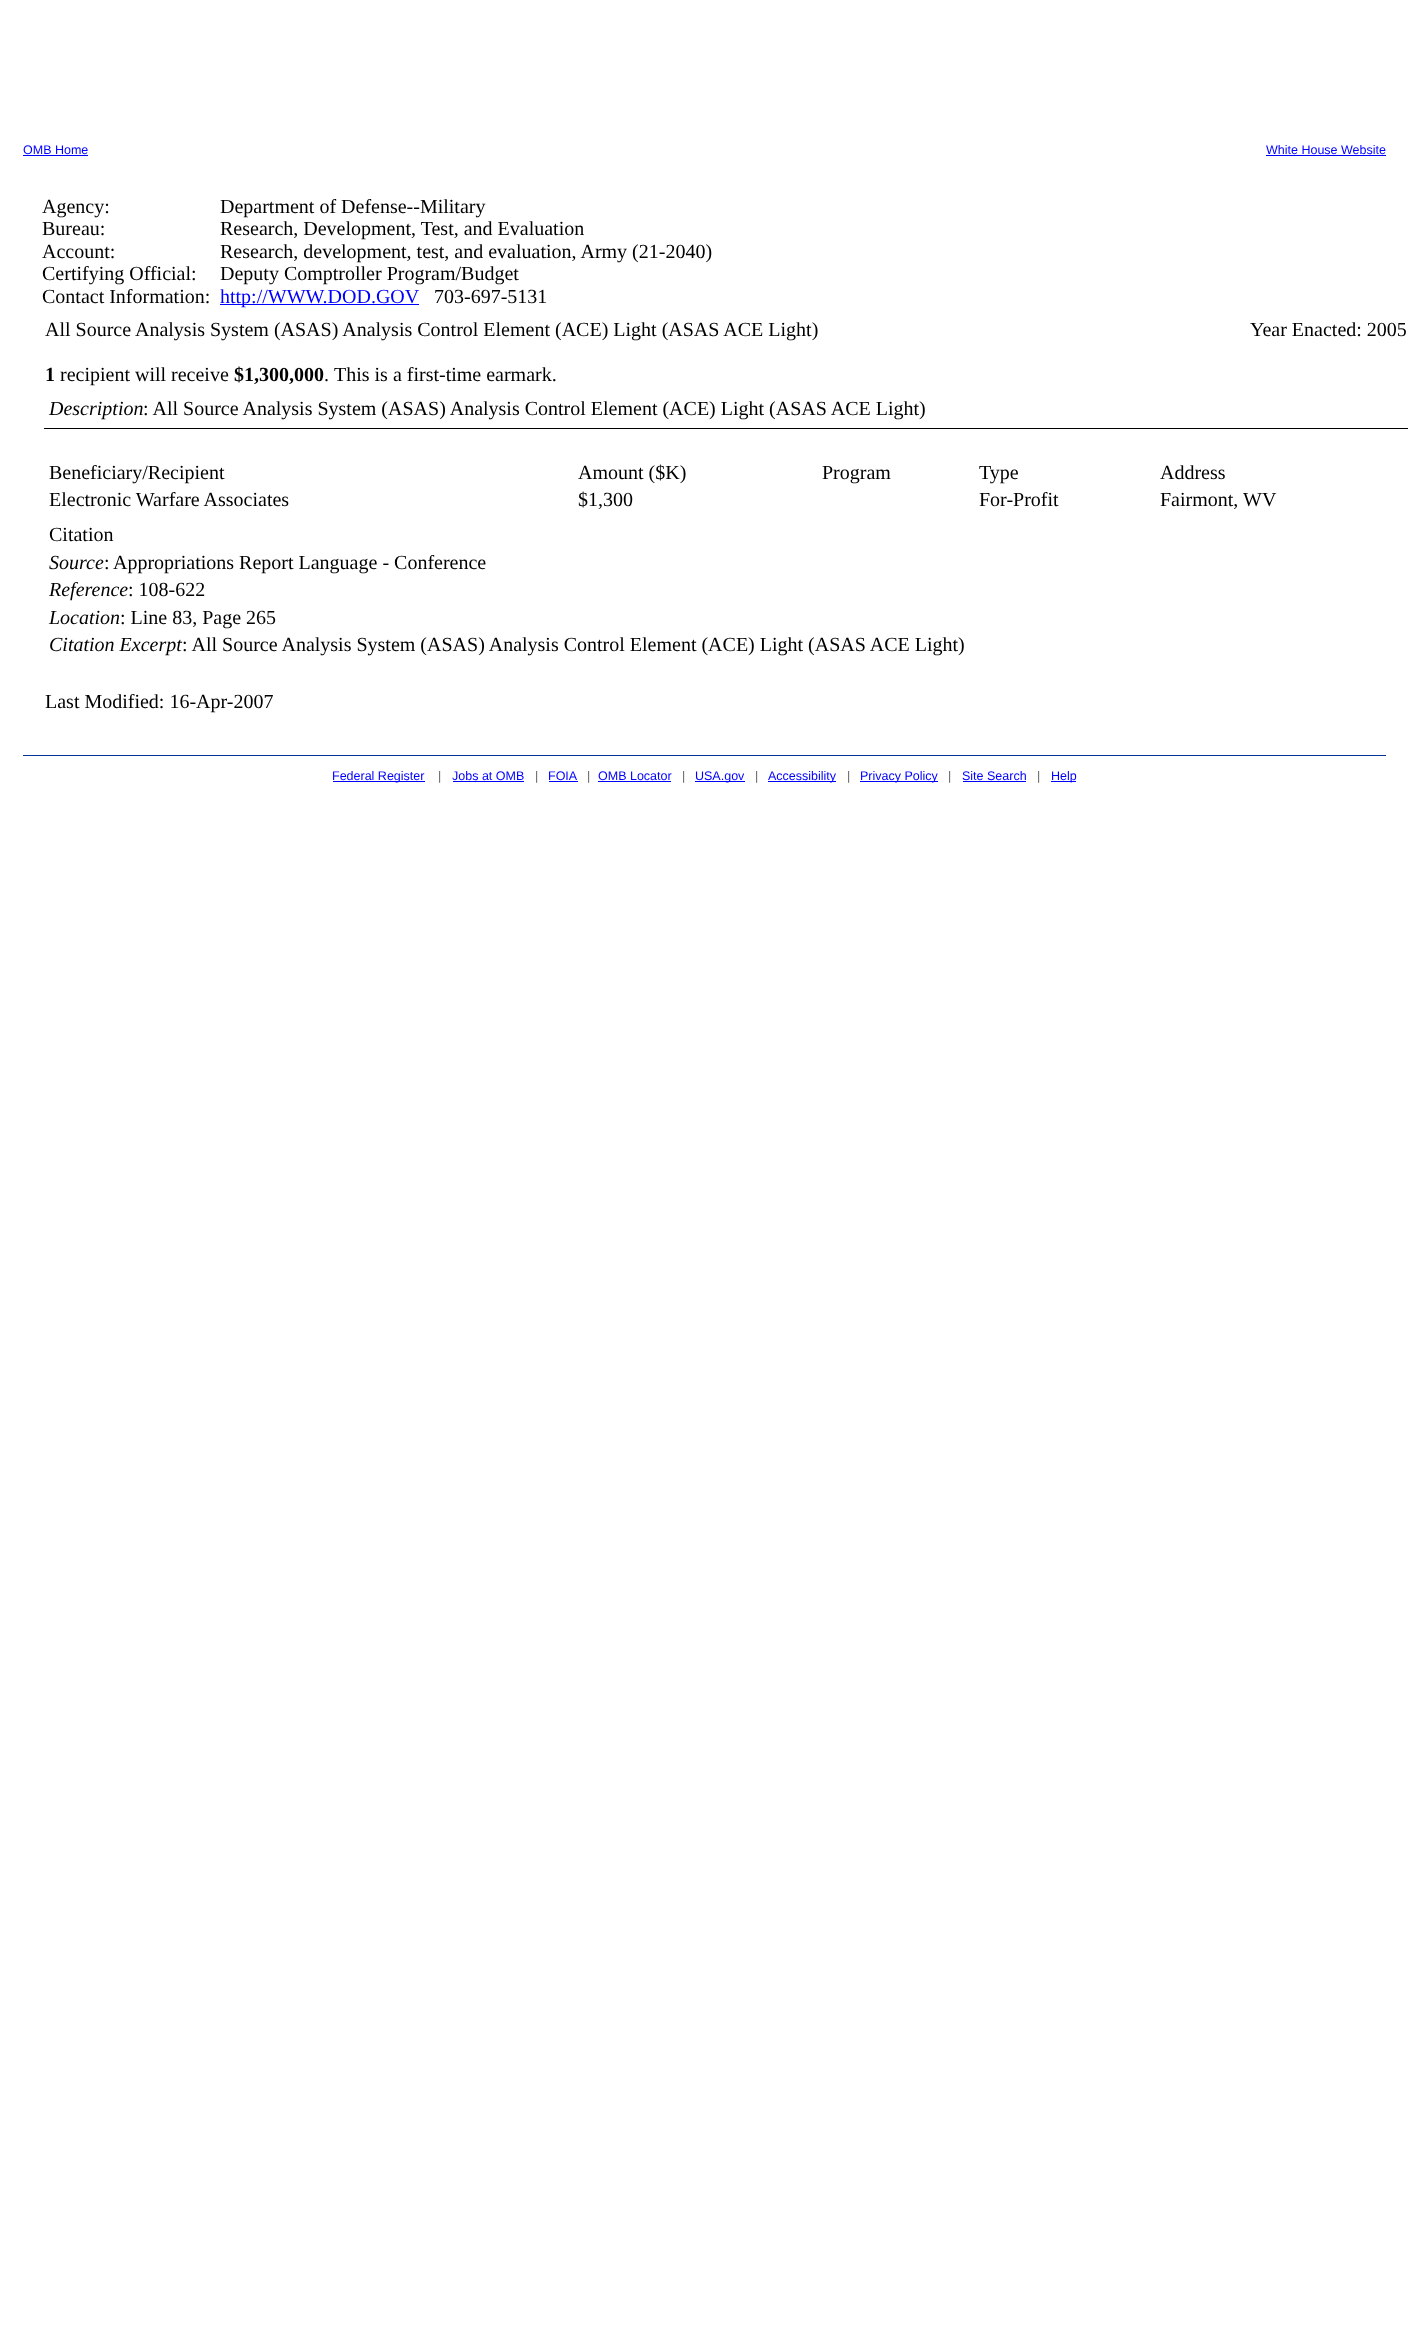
<!DOCTYPE html>
<meta charset="utf-8">
<style>body { margin: 0 } canvas { display: block }</style>
<canvas id="canvas" width="1408" height="2343"></canvas>
<script>
window.onload = function () {
	const canvas = document.getElementById("canvas");
	const ctx = canvas.getContext("2d");
	ctx.miterLimit = 4;
	ctx.fontKerning = "normal";
	function txt(s, x, y) {
		ctx.fillText(s, x, y);
	}
	function fill(x, y, w, h) {
		ctx.fillRect(x, y, w, h);
	}

	ctx.fillStyle = "#FFFFFF";
	fill(0, 0, 1408, 2343);
	ctx.fillStyle = "#0000FF";
	fill(23, 155, 65, 1);
	fill(1266, 155, 120, 1);
	fill(220, 304, 199, 1);
	ctx.fillStyle = "#000000";
	fill(44, 428, 1364, 1);
	ctx.fillStyle = "#003399";
	fill(23, 755, 1363, 1);
	ctx.fillStyle = "#0000FF";
	fill(333, 781, 92, 1);
	fill(453, 781, 71, 1);
	fill(549, 781, 29, 1);
	fill(598, 781, 73, 1);
	fill(695, 781, 50, 1);
	fill(768, 781, 68, 1);
	fill(860, 781, 78, 1);
	fill(963, 781, 63, 1);
	fill(1051, 781, 25, 1);
	ctx.font = "12.5px Liberation Sans";
	txt("OMB Home", 23, 154);
	txt("White House Website", 1266, 154);
	ctx.font = "20px Liberation Serif";
	ctx.fillStyle = "#000000";
	txt("Agency:", 42, 213);
	txt("Department of Defense--Military", 220, 213);
	txt("Bureau:", 42, 235);
	txt("Research, Development, Test, and Evaluation", 220, 235);
	txt("Account:", 42, 258);
	txt("Research, development, test, and evaluation, Army (21-2040)", 220, 258);
	txt("Certifying Official:", 42, 280);
	txt("Deputy Comptroller Program/Budget", 220, 280);
	txt("Contact Information:", 42, 303);
	ctx.fillStyle = "#0000FF";
	txt("http://WWW.DOD.GOV", 220, 303);
	ctx.fillStyle = "#000000";
	txt("703-697-5131", 434, 303);
	txt("All Source Analysis System (ASAS) Analysis Control Element (ACE) Light (ASAS ACE Light)", 45, 336);
	ctx.font = "bold 20px Liberation Serif";
	txt("1", 45, 381);
	ctx.font = "20px Liberation Serif";
	txt("recipient will receive", 60, 381);
	ctx.font = "bold 20px Liberation Serif";
	txt("$1,300,000", 234, 381);
	ctx.font = "20px Liberation Serif";
	txt(".", 324, 381);
	txt("This is a first-time earmark.", 334, 381);
	txt("Year Enacted: 2005", 1250, 336);
	ctx.font = "italic 20px Liberation Serif";
	txt("Description", 49, 415);
	ctx.font = "20px Liberation Serif";
	txt(": All Source Analysis System (ASAS) Analysis Control Element (ACE) Light (ASAS ACE Light)", 143, 415);
	txt("Beneficiary/Recipient", 49, 479);
	txt("Amount ($K)", 578, 479);
	txt("Program", 822, 479);
	txt("Type", 979, 479);
	txt("Address", 1160, 479);
	txt("Electronic Warfare Associates", 49, 506);
	txt("$1,300", 578, 506);
	txt("For-Profit", 979, 506);
	txt("Fairmont,", 1160, 506);
	txt("WV", 1243, 506);
	txt("Citation", 49, 541);
	ctx.font = "italic 20px Liberation Serif";
	txt("Source", 49, 569);
	ctx.font = "20px Liberation Serif";
	txt(":", 104, 569);
	txt("Appropriations Report Language - Conference", 113, 569);
	ctx.font = "italic 20px Liberation Serif";
	txt("Reference", 49, 596);
	ctx.font = "20px Liberation Serif";
	txt(": 108-622", 128, 596);
	ctx.font = "italic 20px Liberation Serif";
	txt("Location", 49, 624);
	ctx.font = "20px Liberation Serif";
	txt(": Line 83, Page 265", 120, 624);
	ctx.font = "italic 20px Liberation Serif";
	txt("Citation Excerpt", 49, 651);
	ctx.font = "20px Liberation Serif";
	txt(": All Source Analysis System (ASAS) Analysis Control Element (ACE) Light (ASAS ACE Light)", 182, 651);
	txt("Last Modified: 16-Apr-2007", 45, 708);
	ctx.font = "12.5px Liberation Sans";
	ctx.fillStyle = "#0000FF";
	txt("Federal Register", 332, 780);
	ctx.fillStyle = "#666666";
	txt("|", 438, 780);
	ctx.fillStyle = "#0000FF";
	txt("Jobs at OMB", 452, 780);
	ctx.fillStyle = "#666666";
	txt("|", 535, 780);
	ctx.fillStyle = "#0000FF";
	txt("FOIA", 548, 780);
	ctx.fillStyle = "#666666";
	txt("|", 587, 780);
	ctx.fillStyle = "#0000FF";
	txt("OMB Locator", 598, 780);
	ctx.fillStyle = "#666666";
	txt("|", 682, 780);
	ctx.fillStyle = "#0000FF";
	txt("USA.gov", 695, 780);
	ctx.fillStyle = "#666666";
	txt("|", 755, 780);
	ctx.fillStyle = "#0000FF";
	txt("Accessibility", 768, 780);
	ctx.fillStyle = "#666666";
	txt("|", 847, 780);
	ctx.fillStyle = "#0000FF";
	txt("Privacy Policy", 860, 780);
	ctx.fillStyle = "#666666";
	txt("|", 948, 780);
	ctx.fillStyle = "#0000FF";
	txt("Site Search", 962, 780);
	ctx.fillStyle = "#666666";
	txt("|", 1037, 780);
	ctx.fillStyle = "#0000FF";
	txt("Help", 1051, 780);
};
</script>
